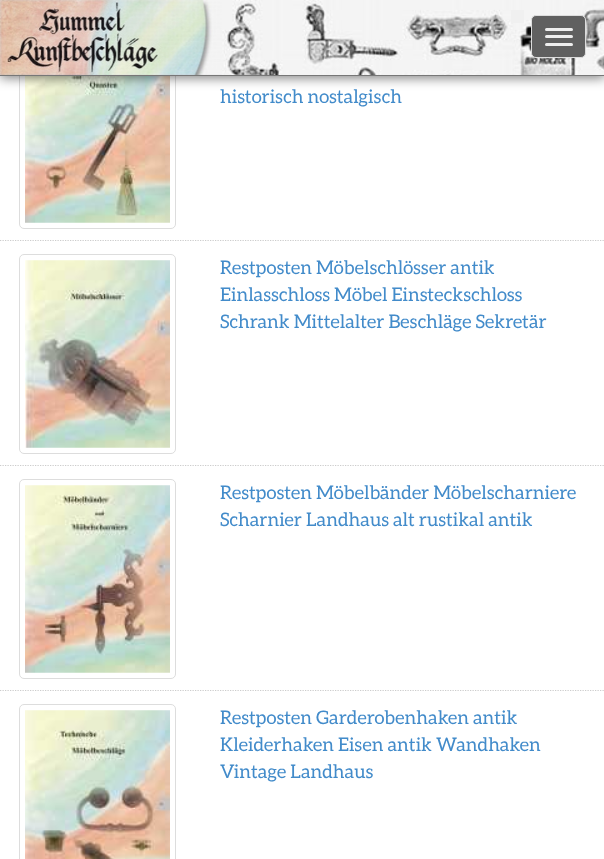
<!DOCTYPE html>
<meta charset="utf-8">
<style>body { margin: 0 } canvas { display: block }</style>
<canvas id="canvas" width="604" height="859"></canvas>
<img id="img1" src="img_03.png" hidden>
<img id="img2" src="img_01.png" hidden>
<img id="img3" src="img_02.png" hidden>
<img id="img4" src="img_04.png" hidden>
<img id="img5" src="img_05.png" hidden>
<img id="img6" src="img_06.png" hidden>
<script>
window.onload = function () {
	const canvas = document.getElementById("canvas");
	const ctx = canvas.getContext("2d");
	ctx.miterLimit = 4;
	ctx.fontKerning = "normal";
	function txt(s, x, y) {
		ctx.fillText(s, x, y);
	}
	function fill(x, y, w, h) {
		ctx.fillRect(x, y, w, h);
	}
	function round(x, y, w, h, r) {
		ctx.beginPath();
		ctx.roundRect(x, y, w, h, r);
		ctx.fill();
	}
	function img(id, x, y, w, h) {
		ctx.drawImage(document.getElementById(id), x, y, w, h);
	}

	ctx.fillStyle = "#FFFFFF";
	fill(0, 0, 604, 859);
	ctx.beginPath();
	ctx.roundRect(19.5, 29.5, 156, 199, 4.5);
	ctx.strokeStyle = "#DDDDDD";
	ctx.stroke();
	img("img1", 25, 76, 145, 147);
	ctx.fillStyle = "rgba(0, 0, 0, 0.5)";
	ctx.filter = "blur(6px)";
	ctx.beginPath();
	ctx.rect(0, 1, 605, 77);
	ctx.fill();
	ctx.filter = "none";
	ctx.fillStyle = "#777777";
	fill(0, 75, 604, 1);
	img("img2", 222, 0, 382, 75);
	img("img3", 0, 0, 222, 75);
	ctx.fillStyle = "#F0F0F0";
	fill(511, 10, 13, 13);
	ctx.fillStyle = "#606060";
	ctx.beginPath();
	ctx.roundRect(531.5, 15.5, 54, 42, 4.5);
	ctx.fill();
	ctx.stroke();
	ctx.fillStyle = "#EEEEEE";
	round(545, 28, 28, 3, 1.5);
	round(545, 35, 28, 3, 1.5);
	round(545, 43, 28, 3, 1.5);
	ctx.beginPath();
	ctx.moveTo(0, 240.5);
	ctx.lineTo(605, 240.5);
	ctx.strokeStyle = "#CCCCCC";
	ctx.lineWidth = 1.2;
	ctx.setLineDash([1.25, 1.25]);
	ctx.stroke();
	ctx.beginPath();
	ctx.moveTo(0, 465.5);
	ctx.lineTo(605, 465.5);
	ctx.stroke();
	ctx.beginPath();
	ctx.roundRect(19.5, 254.5, 156, 199, 4.5);
	ctx.strokeStyle = "#DDDDDD";
	ctx.lineWidth = 1;
	ctx.setLineDash([]);
	ctx.stroke();
	img("img4", 25, 260, 145, 188);
	ctx.beginPath();
	ctx.moveTo(0, 690.5);
	ctx.lineTo(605, 690.5);
	ctx.strokeStyle = "#CCCCCC";
	ctx.lineWidth = 1.2;
	ctx.setLineDash([1.25, 1.25]);
	ctx.stroke();
	ctx.beginPath();
	ctx.roundRect(19.5, 479.5, 156, 199, 4.5);
	ctx.strokeStyle = "#DDDDDD";
	ctx.lineWidth = 1;
	ctx.setLineDash([]);
	ctx.stroke();
	img("img5", 25, 485, 145, 188);
	ctx.beginPath();
	ctx.roundRect(19.5, 704.5, 156, 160, 4.5);
	ctx.stroke();
	img("img6", 25, 710, 145, 149);
	ctx.font = "18.75px Aleo";
	ctx.fillStyle = "#428BCA";
	txt("historisch nostalgisch", 220, 103);
	txt("Restposten Möbelschlösser antik", 220, 274);
	txt("Einlasschloss Möbel Einsteckschloss", 220, 301);
	txt("Schrank Mittelalter Beschläge Sekretär", 220, 328);
	txt("Restposten Möbelbänder Möbelscharniere", 220, 499);
	txt("Scharnier Landhaus alt rustikal antik", 220, 526);
	txt("Restposten Garderobenhaken antik", 220, 724);
	txt("Kleiderhaken Eisen antik Wandhaken", 220, 751);
	txt("Vintage Landhaus", 220, 778);
};
</script>
